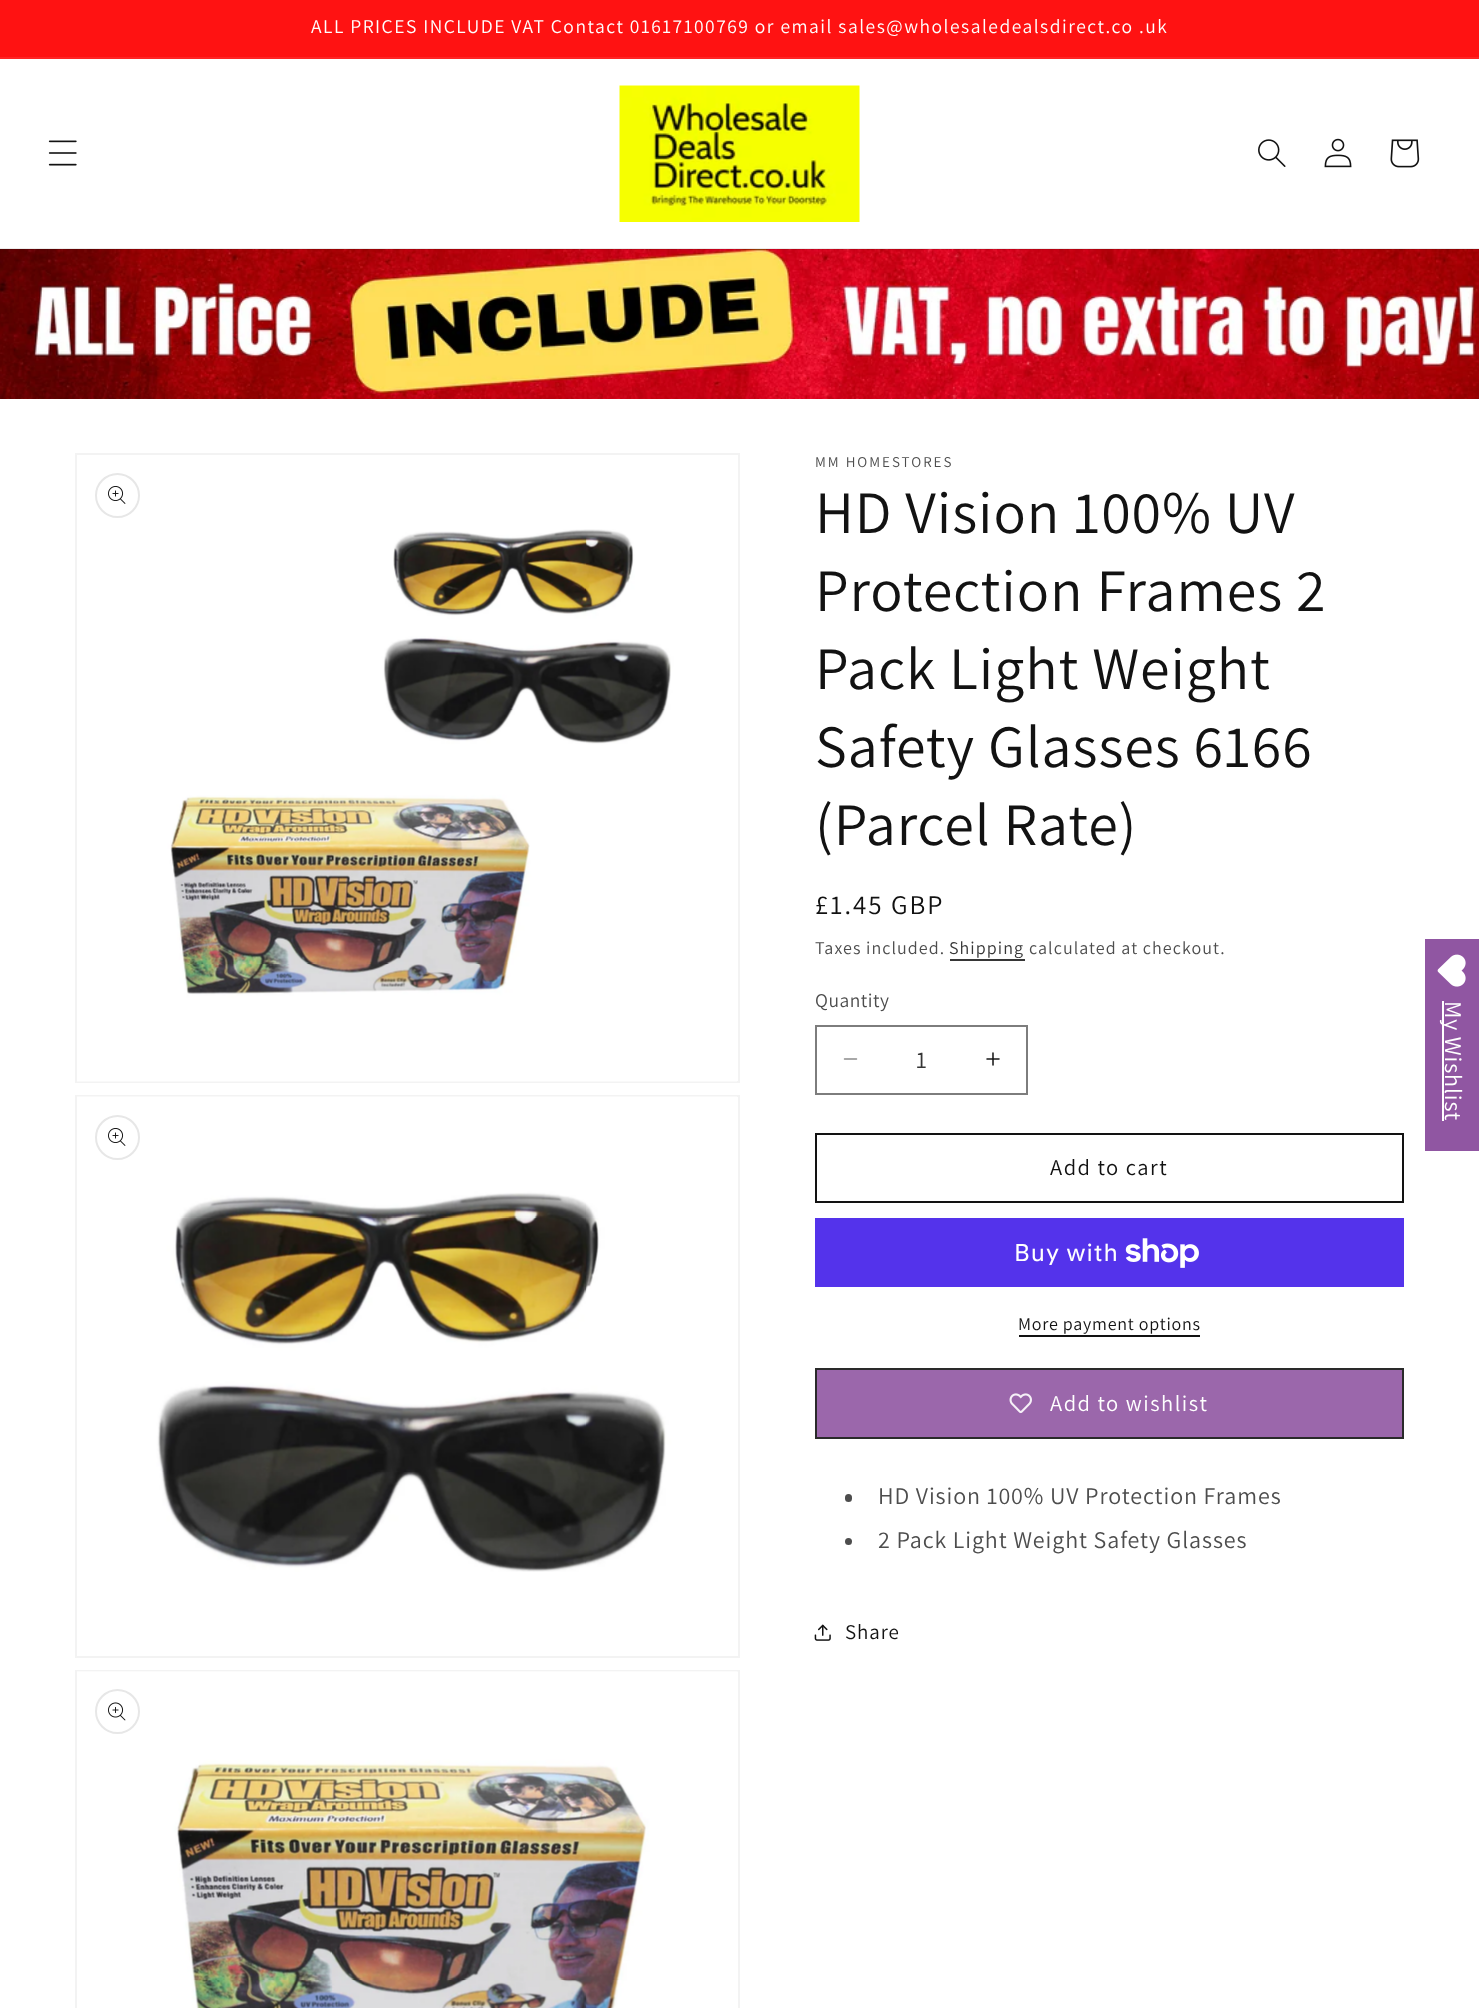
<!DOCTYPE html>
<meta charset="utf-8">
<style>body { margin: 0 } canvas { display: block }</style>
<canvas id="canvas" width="1479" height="2008"></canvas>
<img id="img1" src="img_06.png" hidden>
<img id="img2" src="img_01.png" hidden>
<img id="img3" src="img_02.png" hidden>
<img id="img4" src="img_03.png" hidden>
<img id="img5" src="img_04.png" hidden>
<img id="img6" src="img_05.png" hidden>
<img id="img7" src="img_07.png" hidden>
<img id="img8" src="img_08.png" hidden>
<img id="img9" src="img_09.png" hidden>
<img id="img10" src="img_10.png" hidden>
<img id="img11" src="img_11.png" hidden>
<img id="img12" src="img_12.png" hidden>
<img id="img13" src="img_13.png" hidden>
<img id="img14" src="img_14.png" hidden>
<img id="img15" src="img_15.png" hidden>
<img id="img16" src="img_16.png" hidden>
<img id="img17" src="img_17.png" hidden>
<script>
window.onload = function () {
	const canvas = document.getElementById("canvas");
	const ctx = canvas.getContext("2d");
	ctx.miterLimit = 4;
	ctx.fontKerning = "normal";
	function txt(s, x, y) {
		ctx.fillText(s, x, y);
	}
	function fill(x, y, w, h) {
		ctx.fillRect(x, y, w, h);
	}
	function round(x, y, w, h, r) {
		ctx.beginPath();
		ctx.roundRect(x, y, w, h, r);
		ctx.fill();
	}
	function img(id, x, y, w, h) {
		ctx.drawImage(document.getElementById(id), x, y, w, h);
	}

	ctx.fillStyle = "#FFFFFF";
	fill(0, 0, 1479, 2008);
	ctx.fillStyle = "#FF1212";
	fill(0, 0, 1479, 57);
	ctx.fillStyle = "#FF2525";
	fill(0, 57, 1479, 2);
	img("img1", 0, 249, 1479, 150);
	ctx.fillStyle = "rgba(18, 18, 18, 0.08)";
	fill(0, 248, 1479, 2);
	img("img2", 48, 140, 29, 26);
	img("img3", 619, 85, 241, 137);
	img("img4", 1258, 139, 28, 28);
	img("img5", 1324, 138, 28, 30);
	img("img6", 1390, 139, 30, 29);
	ctx.strokeStyle = "#F3F3F3";
	ctx.lineWidth = 2;
	ctx.strokeRect(76, 454, 663, 628);
	ctx.beginPath();
	ctx.arc(117.5, 495.5, 21.5, 0, Math.PI * 2);
	ctx.strokeStyle = "#E7E7E7";
	ctx.stroke();
	img("img7", 108, 486, 18, 18);
	img("img8", 77, 529, 660, 553);
	ctx.strokeStyle = "#F3F3F3";
	ctx.strokeRect(76, 1096, 663, 561);
	img("img9", 77, 1096, 660, 476);
	ctx.beginPath();
	ctx.arc(117.5, 1137.5, 21.5, 0, Math.PI * 2);
	ctx.strokeStyle = "#E7E7E7";
	ctx.stroke();
	img("img7", 108, 1128, 18, 18);
	ctx.strokeStyle = "#F3F3F3";
	ctx.strokeRect(76, 1671, 663, 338);
	img("img10", 77, 1671, 661, 337);
	ctx.beginPath();
	ctx.arc(117.5, 1711.5, 21.5, 0, Math.PI * 2);
	ctx.strokeStyle = "#E7E7E7";
	ctx.stroke();
	img("img11", 108, 1702, 18, 19);
	ctx.fillStyle = "#363636";
	fill(950, 959, 75, 2);
	img("img12", 843, 1058, 15, 2);
	img("img13", 986, 1052, 14, 14);
	ctx.strokeStyle = "#7D7D7D";
	ctx.strokeRect(816, 1026, 211, 68);
	ctx.strokeStyle = "#121212";
	ctx.strokeRect(816, 1134, 587, 68);
	ctx.fillStyle = "#5433EB";
	fill(815, 1218, 589, 69);
	img("img14", 1125, 1238, 74, 30);
	ctx.fillStyle = "#121212";
	fill(1019, 1335, 181, 2);
	ctx.fillStyle = "#9B67AB";
	fill(817, 1370, 585, 67);
	img("img15", 1009, 1393, 23, 21);
	ctx.strokeStyle = "#2A2A2A";
	ctx.strokeRect(816, 1369, 587, 69);
	ctx.fillStyle = "#4D4D4D";
	round(845, 1494, 7, 8, 3.5);
	ctx.beginPath();
	ctx.arc(848.5, 1541.5, 3.5, 0, Math.PI * 2);
	ctx.fill();
	img("img16", 814, 1624, 17, 17);
	ctx.fillStyle = "#9056A2";
	fill(1425, 939, 54, 212);
	img("img17", 1437, 954, 29, 33);
	ctx.fillStyle = "#FFFFFF";
	fill(1442, 1001, 2, 120);
	ctx.letterSpacing = "1.5px";
	ctx.font = "19.5px Assistant";
	txt("ALL PRICES INCLUDE VAT Contact 01617100769 or email sales@wholesaledealsdirect.co .uk", 311, 33);
	ctx.letterSpacing = "2px";
	ctx.font = "15px Assistant";
	ctx.fillStyle = "#4D4D4D";
	txt("MM HOMESTORES", 815, 467);
	ctx.letterSpacing = "0.9px";
	ctx.font = "60px Assistant";
	ctx.fillStyle = "#121212";
	txt("HD Vision 100% UV", 815, 533);
	txt("Protection Frames 2", 815, 611);
	txt("Pack Light Weight", 815, 689);
	txt("Safety Glasses 6166", 815, 767);
	txt("(Parcel Rate)", 815, 845);
	ctx.letterSpacing = "2px";
	ctx.font = "27px Assistant";
	txt("£1.45 GBP", 815, 914);
	ctx.letterSpacing = "1.05px";
	ctx.font = "18px Assistant";
	ctx.fillStyle = "#4D4D4D";
	txt("Taxes included.", 815, 954);
	ctx.fillStyle = "#363636";
	txt("Shipping", 949, 954);
	ctx.fillStyle = "#4D4D4D";
	txt("calculated at checkout.", 1029, 954);
	ctx.letterSpacing = "0.5px";
	ctx.font = "19.5px Assistant";
	txt("Quantity", 815, 1007);
	ctx.letterSpacing = "0px";
	ctx.font = "24px Assistant";
	ctx.fillStyle = "#363636";
	txt("1", 916, 1068);
	ctx.letterSpacing = "1.5px";
	ctx.font = "22.5px Assistant";
	ctx.fillStyle = "#121212";
	txt("Add to cart", 1050, 1175);
	ctx.letterSpacing = "0.9px";
	ctx.font = "24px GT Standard";
	ctx.fillStyle = "#FFFFFF";
	txt("Buy with", 1014, 1261);
	ctx.letterSpacing = "0.75px";
	ctx.font = "18px Assistant";
	ctx.fillStyle = "#121212";
	txt("More payment options", 1018, 1330);
	ctx.letterSpacing = "1.5px";
	ctx.font = "22.5px Assistant";
	ctx.fillStyle = "#FFFFFF";
	txt("Add to wishlist", 1050, 1411);
	ctx.letterSpacing = "0.9px";
	ctx.font = "24px Assistant";
	ctx.fillStyle = "#4D4D4D";
	txt("HD Vision 100% UV Protection Frames", 878, 1504);
	txt("2 Pack Light Weight Safety Glasses", 878, 1548);
	ctx.font = "21px Assistant";
	ctx.fillStyle = "#121212";
	txt("Share", 845, 1639);
	ctx.font = "24px Assistant";
	ctx.fillStyle = "#FFFFFF";
	ctx.save();
	ctx.translate(1445, 1001);
	ctx.rotate(90 * Math.PI / 180);
	ctx.fillText("My Wishlist", 0, 0);
	ctx.restore();
};
</script>
